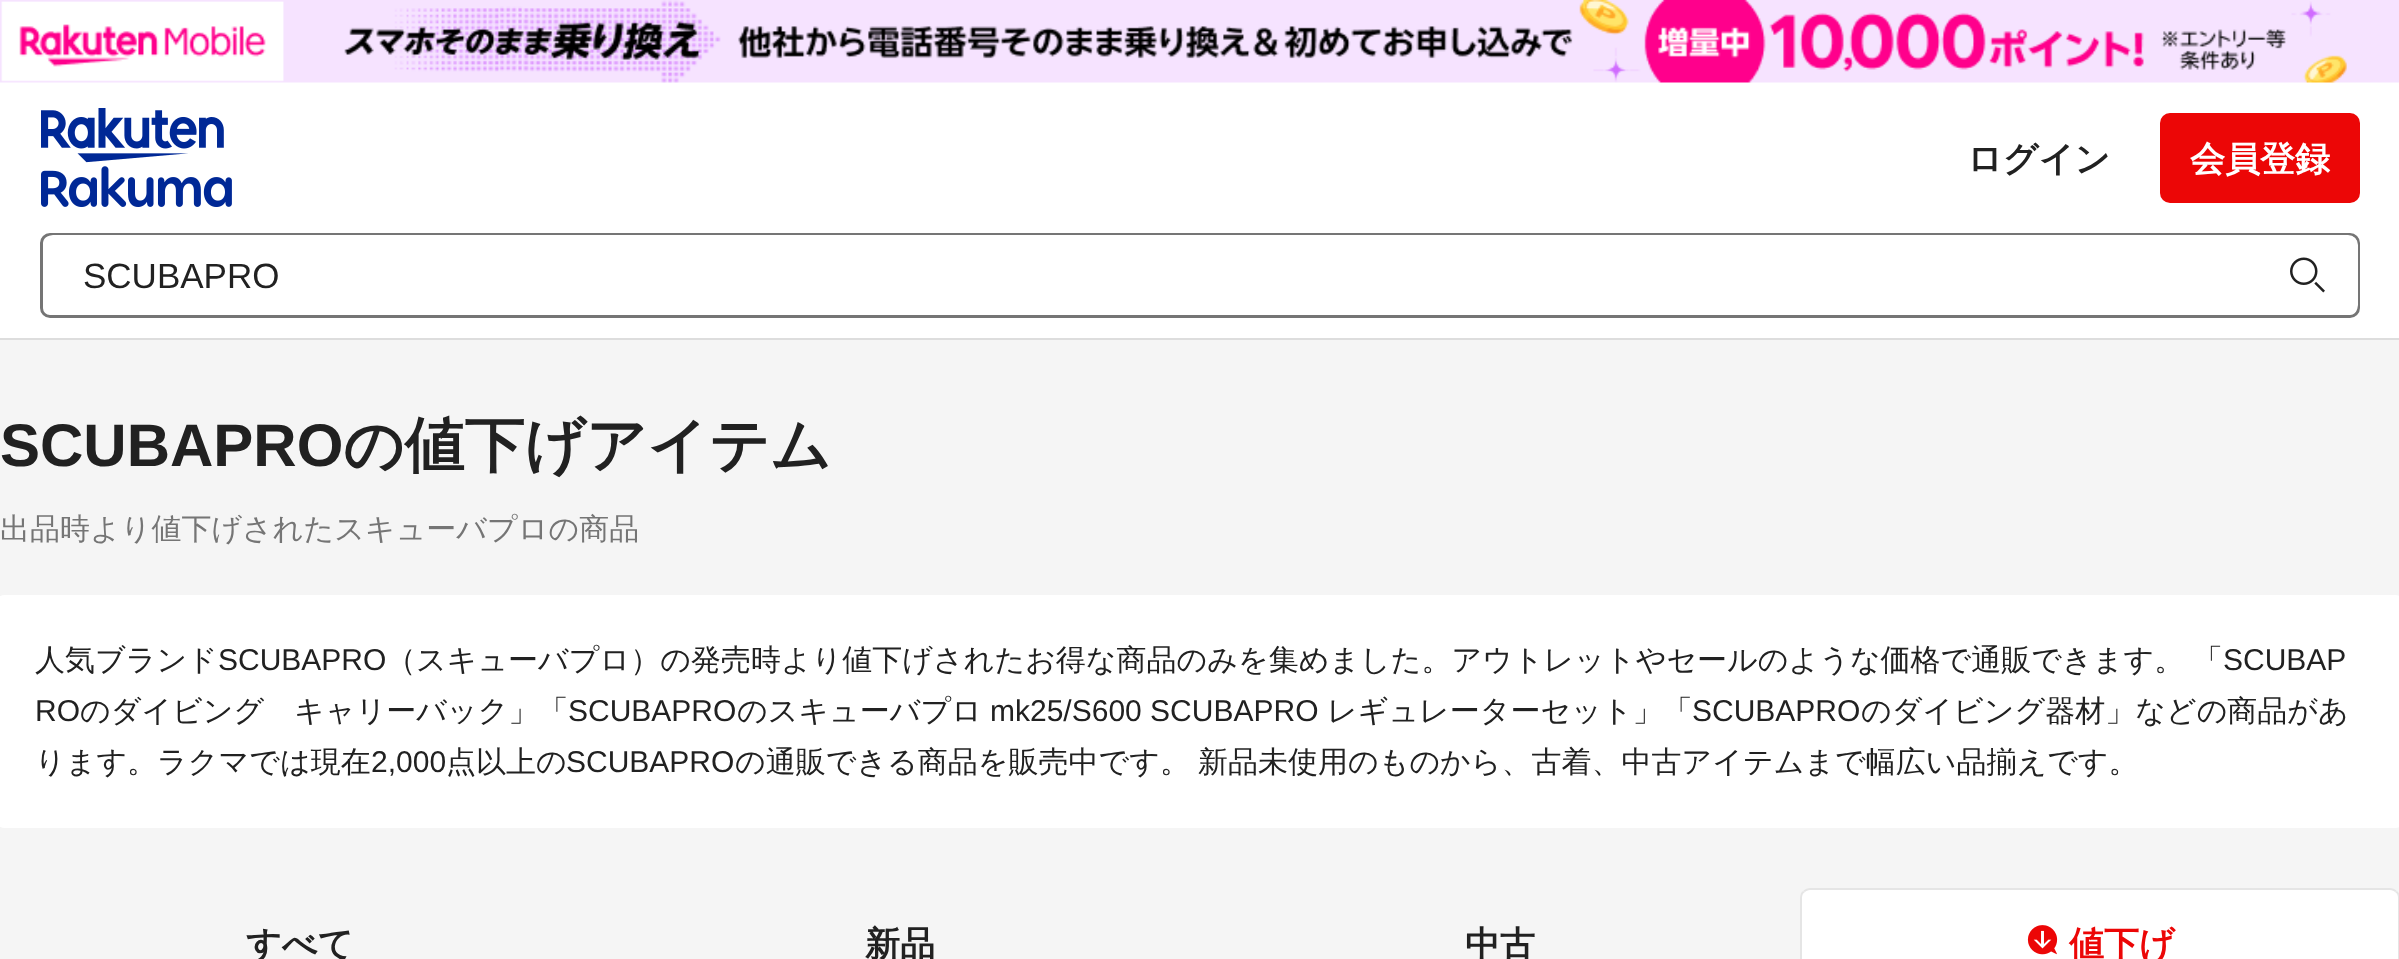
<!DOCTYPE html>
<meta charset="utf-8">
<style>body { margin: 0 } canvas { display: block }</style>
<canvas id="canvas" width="2399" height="959"></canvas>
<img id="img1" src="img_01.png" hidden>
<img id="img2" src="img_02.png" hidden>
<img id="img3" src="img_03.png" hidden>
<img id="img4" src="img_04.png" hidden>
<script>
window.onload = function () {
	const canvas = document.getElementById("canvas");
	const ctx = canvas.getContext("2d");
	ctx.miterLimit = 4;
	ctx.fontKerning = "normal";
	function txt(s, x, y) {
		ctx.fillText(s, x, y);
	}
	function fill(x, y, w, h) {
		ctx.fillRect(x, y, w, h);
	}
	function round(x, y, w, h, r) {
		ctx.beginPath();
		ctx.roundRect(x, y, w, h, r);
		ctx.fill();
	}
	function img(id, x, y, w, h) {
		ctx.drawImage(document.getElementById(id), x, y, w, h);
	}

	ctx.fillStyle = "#F5F5F5";
	fill(0, 0, 2399, 959);
	ctx.fillStyle = "#FFFFFF";
	fill(0, 82, 2399, 256);
	img("img1", 0, 0, 2399, 83);
	ctx.fillStyle = "#DDDDDD";
	fill(0, 338, 2399, 2);
	img("img2", 41, 108, 191, 99);
	ctx.fillStyle = "#EC0606";
	round(2160, 113, 200, 90, 10);
	ctx.beginPath();
	ctx.roundRect(41.5, 234.5, 2317, 82, 8.5);
	ctx.strokeStyle = "#757575";
	ctx.lineWidth = 3;
	ctx.stroke();
	ctx.fillStyle = "#FFFFFF";
	round(43, 235, 2315, 80, 10);
	img("img3", 2290, 257, 35, 36);
	round(-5, 595, 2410, 233, 10);
	ctx.beginPath();
	ctx.moveTo(1810, 888);
	ctx.lineTo(2390, 888);
	ctx.bezierCurveTo(2395.5, 888, 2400, 892.5, 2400, 898);
	ctx.lineTo(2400, 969);
	ctx.lineTo(1800, 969);
	ctx.lineTo(1800, 898);
	ctx.bezierCurveTo(1800, 892.5, 1804.5, 888, 1810, 888);
	ctx.closePath();
	ctx.fill();
	ctx.fillStyle = "#E5E5E5";
	ctx.beginPath();
	ctx.moveTo(1810, 888);
	ctx.bezierCurveTo(1807, 888, 1805, 889, 1803, 891);
	ctx.lineTo(1805, 892);
	ctx.bezierCurveTo(1806, 891, 1808, 890, 1810, 890);
	ctx.lineTo(2390, 890);
	ctx.bezierCurveTo(2392, 890, 2394, 891, 2395, 892);
	ctx.lineTo(2397, 891);
	ctx.bezierCurveTo(2395, 889, 2393, 888, 2390, 888);
	ctx.closePath();
	ctx.fill();
	ctx.beginPath();
	ctx.moveTo(2397, 891);
	ctx.bezierCurveTo(2399, 892, 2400, 895, 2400, 898);
	ctx.lineTo(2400, 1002);
	ctx.lineTo(2398, 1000);
	ctx.lineTo(2398, 898);
	ctx.bezierCurveTo(2398, 895, 2397, 893, 2395, 892);
	ctx.closePath();
	ctx.fill();
	ctx.beginPath();
	ctx.moveTo(1800, 898);
	ctx.lineTo(1800, 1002);
	ctx.lineTo(1802, 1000);
	ctx.lineTo(1802, 898);
	ctx.bezierCurveTo(1802, 895, 1803, 893, 1805, 892);
	ctx.lineTo(1803, 891);
	ctx.bezierCurveTo(1801, 892, 1800, 895, 1800, 898);
	ctx.closePath();
	ctx.fill();
	img("img4", 2027, 925, 31, 30);
	ctx.font = "bold 35px WenQuanYi Zen Hei";
	ctx.fillStyle = "#212121";
	txt("ログイン", 1967, 171);
	ctx.fillStyle = "#FFFFFF";
	txt("会員登録", 2190, 171);
	ctx.font = "35px Liberation Sans";
	ctx.fillStyle = "#212121";
	txt("SCUBAPRO", 83, 288);
	ctx.font = "bold 60px Liberation Sans";
	txt("SCUBAPRO", 0, 466);
	ctx.font = "bold 60px WenQuanYi Zen Hei";
	txt("の値下げアイテム", 343, 466);
	ctx.font = "500 30px WenQuanYi Zen Hei";
	ctx.fillStyle = "#757575";
	txt("出品時より値下げされたスキューバプロの商品", 0, 539);
	ctx.fillStyle = "#212121";
	txt("人気ブランド", 35, 670);
	ctx.font = "30px Liberation Sans";
	txt("SCUBAPRO", 218, 670);
	ctx.font = "500 30px WenQuanYi Zen Hei";
	txt("（スキューバプロ）の発売時より値下げされたお得な商品のみを集めました。アウトレットやセールのような価格で通販できます。", 386, 670);
	txt("「", 2193, 670);
	ctx.font = "30px Liberation Sans";
	txt("SCUBAP", 2223, 670);
	txt("RO", 35, 721);
	ctx.font = "500 30px WenQuanYi Zen Hei";
	txt("のダイビング　キャリーバック」「", 80, 721);
	ctx.font = "30px Liberation Sans";
	txt("SCUBAPRO", 568, 721);
	ctx.font = "500 30px WenQuanYi Zen Hei";
	txt("のスキューバプロ", 737, 721);
	ctx.font = "30px Liberation Sans";
	txt("mk25/S600 SCUBAPRO", 990, 721);
	ctx.font = "500 30px WenQuanYi Zen Hei";
	txt("レギュレーターセット」「", 1327, 721);
	ctx.font = "30px Liberation Sans";
	txt("SCUBAPRO", 1692, 721);
	ctx.font = "500 30px WenQuanYi Zen Hei";
	txt("のダイビング器材」などの商品があ", 1861, 721);
	txt("ります。ラクマでは現在", 35, 772);
	ctx.font = "30px Liberation Sans";
	txt("2,000", 371, 772);
	ctx.font = "500 30px WenQuanYi Zen Hei";
	txt("点以上の", 446, 772);
	ctx.font = "30px Liberation Sans";
	txt("SCUBAPRO", 566, 772);
	ctx.font = "500 30px WenQuanYi Zen Hei";
	txt("の通販できる商品を販売中です。", 735, 772);
	txt("新品未使用のものから、古着、中古アイテムまで幅広い品揃えです。", 1198, 772);
	ctx.font = "bold 35px WenQuanYi Zen Hei";
	txt("すべて", 246, 956);
	txt("新品", 865, 956);
	txt("中古", 1465, 956);
	ctx.fillStyle = "#EC0606";
	txt("値下げ", 2069, 956);
};
</script>
